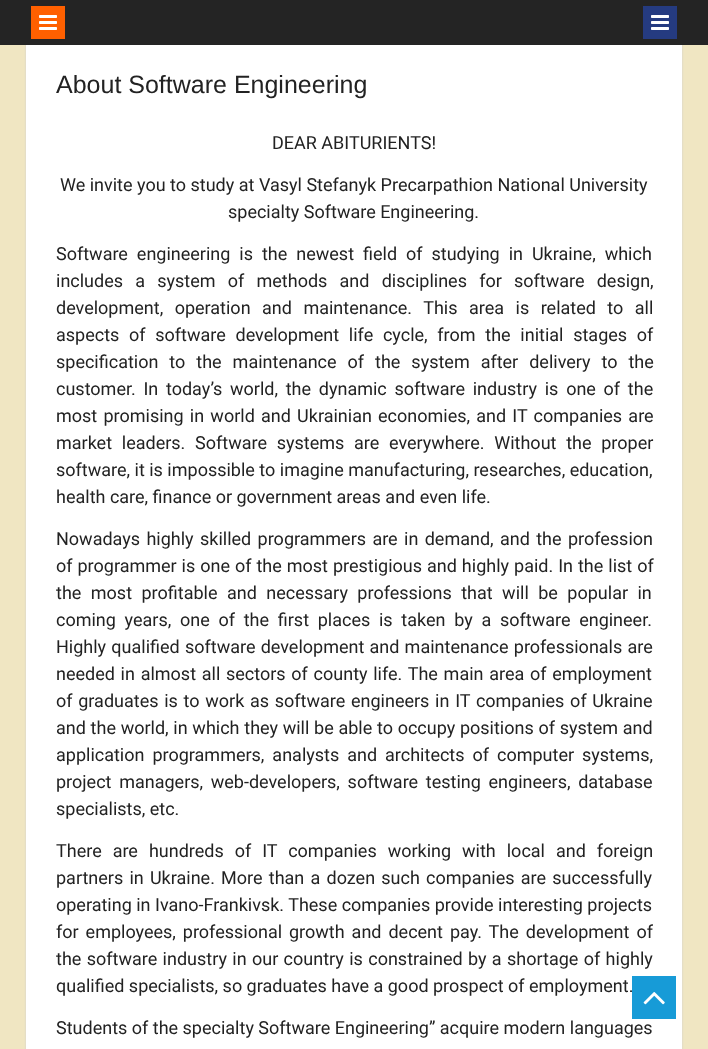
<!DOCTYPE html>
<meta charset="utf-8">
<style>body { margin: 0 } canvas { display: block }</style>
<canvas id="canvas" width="708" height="1049"></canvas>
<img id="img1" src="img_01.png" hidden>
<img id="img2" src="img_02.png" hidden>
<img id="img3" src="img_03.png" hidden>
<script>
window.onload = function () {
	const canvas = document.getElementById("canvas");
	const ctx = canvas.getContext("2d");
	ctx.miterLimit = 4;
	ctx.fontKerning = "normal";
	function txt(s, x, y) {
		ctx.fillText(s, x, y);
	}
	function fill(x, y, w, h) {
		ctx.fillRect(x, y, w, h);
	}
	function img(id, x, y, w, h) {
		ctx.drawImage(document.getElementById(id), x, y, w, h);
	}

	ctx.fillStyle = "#F0E6C2";
	fill(0, 0, 708, 1049);
	ctx.fillStyle = "#CFCFCF";
	ctx.filter = "blur(1px)";
	ctx.beginPath();
	ctx.rect(26, 36, 656, 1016);
	ctx.fill();
	ctx.filter = "none";
	ctx.fillStyle = "#242424";
	fill(0, 0, 708, 45);
	ctx.fillStyle = "#FF6000";
	fill(31, 6, 34, 33);
	img("img1", 39, 15, 18, 15);
	ctx.fillStyle = "#253B80";
	fill(643, 6, 34, 33);
	img("img2", 651, 15, 18, 15);
	ctx.fillStyle = "#FFFFFF";
	fill(26, 45, 656, 1004);
	ctx.fillStyle = "#179BD7";
	fill(632, 976, 44, 43);
	img("img3", 643, 992, 22, 13);
	ctx.font = "25px Liberation Sans";
	ctx.fillStyle = "#222222";
	txt("About Software Engineering", 56, 93);
	ctx.font = "18px Roboto";
	txt("DEAR ABITURIENTS!", 272, 149);
	txt("We invite you to study at Vasyl Stefanyk Precarpathion National University", 60, 191);
	txt("specialty Software Engineering.", 228, 218);
	ctx.wordSpacing = "4.5px";
	txt("Software engineering is the newest field of studying in Ukraine, which", 56, 260);
	ctx.wordSpacing = "7.75px";
	txt("includes a system of methods and disciplines for software design,", 56, 287);
	ctx.wordSpacing = "7px";
	txt("development, operation and maintenance. This area is related to all", 56, 314);
	ctx.wordSpacing = "5.25px";
	txt("aspects of software development life cycle, from the initial stages of", 56, 341);
	ctx.wordSpacing = "6.5px";
	txt("specification to the maintenance of the system after delivery to the", 56, 368);
	ctx.wordSpacing = "3.25px";
	txt("customer. In today’s world, the dynamic software industry is one of the", 56, 395);
	ctx.wordSpacing = "1.75px";
	txt("most promising in world and Ukrainian economies, and IT companies are", 56, 422);
	ctx.wordSpacing = "5.25px";
	txt("market leaders. Software systems are everywhere. Without the proper", 56, 449);
	ctx.wordSpacing = "0px";
	txt("software, it is impossible to imagine manufacturing, researches, education,", 56, 476);
	txt("health care, finance or government areas and even life.", 56, 503);
	ctx.wordSpacing = "1.9px";
	txt("Nowadays highly skilled programmers are in demand, and the profession", 56, 545);
	ctx.wordSpacing = "0.5px";
	txt("of programmer is one of the most prestigious and highly paid. In the list of", 56, 572);
	ctx.wordSpacing = "5px";
	txt("the most profitable and necessary professions that will be popular in", 56, 599);
	ctx.wordSpacing = "4.25px";
	txt("coming years, one of the first places is taken by a software engineer.", 56, 626);
	ctx.wordSpacing = "0.75px";
	txt("Highly qualified software development and maintenance professionals are", 56, 653);
	ctx.wordSpacing = "1.25px";
	txt("needed in almost all sectors of county life. The main area of employment", 56, 680);
	txt("of graduates is to work as software engineers in IT companies of Ukraine", 56, 707);
	ctx.wordSpacing = "0.25px";
	txt("and the world, in which they will be able to occupy positions of system and", 56, 734);
	ctx.wordSpacing = "3.5px";
	txt("application programmers, analysts and architects of computer systems,", 56, 761);
	ctx.wordSpacing = "3.25px";
	txt("project managers, web-developers, software testing engineers, database", 56, 788);
	ctx.wordSpacing = "0px";
	txt("specialists, etc.", 56, 815);
	ctx.wordSpacing = "6.5px";
	txt("There are hundreds of IT companies working with local and foreign", 56, 857);
	ctx.wordSpacing = "1.75px";
	txt("partners in Ukraine. More than a dozen such companies are successfully", 56, 884);
	ctx.wordSpacing = "0px";
	txt("operating in Ivano-Frankivsk. These companies provide interesting projects", 56, 911);
	ctx.wordSpacing = "2.5px";
	txt("for employees, professional growth and decent pay. The development of", 56, 938);
	ctx.wordSpacing = "0.9px";
	txt("the software industry in our country is constrained by a shortage of highly", 56, 965);
	ctx.wordSpacing = "0px";
	txt("qualified specialists, so graduates have a good prospect of employment.", 56, 992);
	txt("Students of the specialty Software Engineering” acquire modern languages", 56, 1034);
};
</script>
